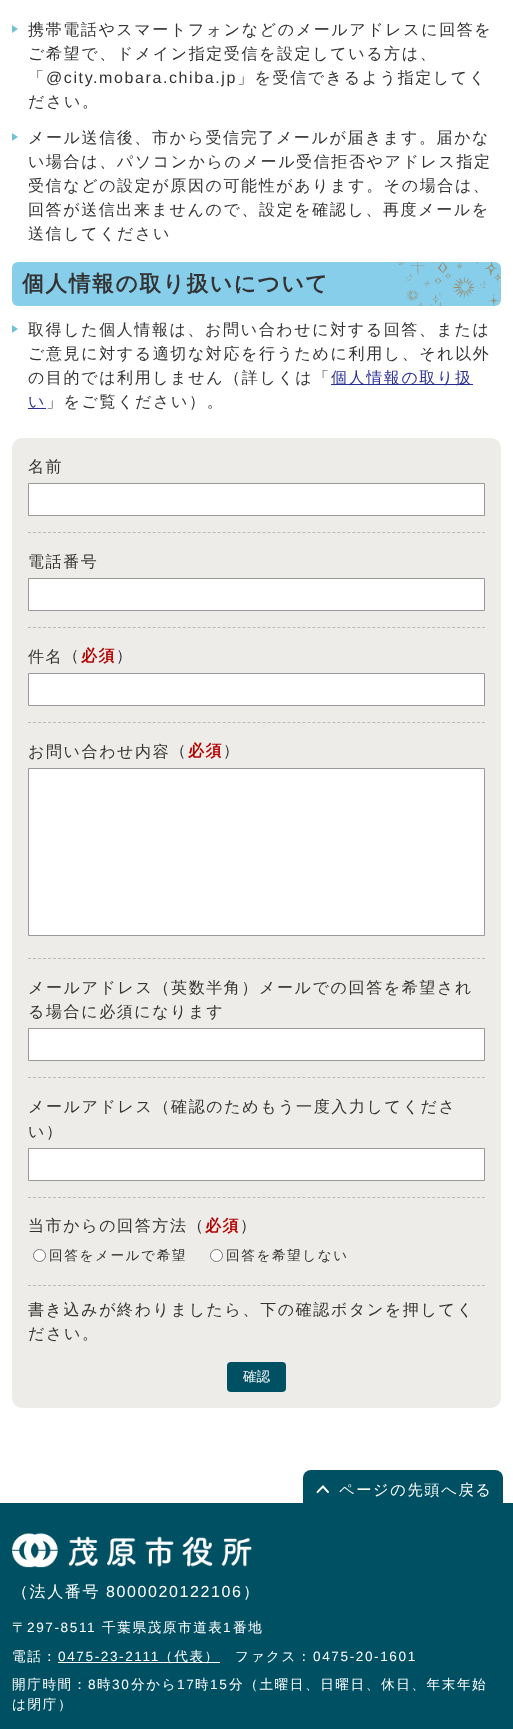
<!DOCTYPE html>
<meta charset="utf-8">
<style>body { margin: 0 } canvas { display: block }</style>
<canvas id="canvas" width="513" height="1729"></canvas>
<img id="img1" src="img_01.png" hidden>
<img id="img2" src="img_02.png" hidden>
<script>
window.onload = function () {
	const canvas = document.getElementById("canvas");
	const ctx = canvas.getContext("2d");
	ctx.miterLimit = 4;
	ctx.fontKerning = "normal";
	function txt(s, x, y) {
		ctx.fillText(s, x, y);
	}
	function fill(x, y, w, h) {
		ctx.fillRect(x, y, w, h);
	}
	function round(x, y, w, h, r) {
		ctx.beginPath();
		ctx.roundRect(x, y, w, h, r);
		ctx.fill();
	}
	function img(id, x, y, w, h) {
		ctx.drawImage(document.getElementById(id), x, y, w, h);
	}

	ctx.fillStyle = "#FFFFFF";
	fill(0, 0, 513, 1729);
	ctx.fillStyle = "#73C1D6";
	ctx.beginPath();
	ctx.moveTo(12, 33);
	ctx.lineTo(12, 25);
	ctx.lineTo(18, 29);
	ctx.closePath();
	ctx.fill();
	ctx.beginPath();
	ctx.moveTo(12, 141);
	ctx.lineTo(12, 133);
	ctx.lineTo(18, 137);
	ctx.closePath();
	ctx.fill();
	ctx.fillStyle = "#87CEEB";
	round(12, 262, 489, 44, 6);
	img("img1", 397, 262, 104, 44);
	ctx.fillStyle = "#73C1D6";
	ctx.beginPath();
	ctx.moveTo(12, 333);
	ctx.lineTo(12, 325);
	ctx.lineTo(18, 329);
	ctx.closePath();
	ctx.fill();
	ctx.fillStyle = "#2B3095";
	fill(331, 384, 142, 1);
	fill(28, 408, 18, 1);
	ctx.fillStyle = "#EDECE8";
	round(12, 438, 489, 970, 10);
	ctx.beginPath();
	ctx.moveTo(28, 532.5);
	ctx.lineTo(485, 532.5);
	ctx.strokeStyle = "#BBBBBB";
	ctx.setLineDash([3, 1.99]);
	ctx.stroke();
	ctx.fillStyle = "#FFFFFF";
	ctx.beginPath();
	ctx.rect(28.5, 483.5, 456, 32);
	ctx.fill();
	ctx.strokeStyle = "#999999";
	ctx.setLineDash([]);
	ctx.stroke();
	ctx.beginPath();
	ctx.moveTo(28, 627.5);
	ctx.lineTo(485, 627.5);
	ctx.strokeStyle = "#BBBBBB";
	ctx.setLineDash([3, 1.99]);
	ctx.stroke();
	ctx.beginPath();
	ctx.rect(28.5, 578.5, 456, 32);
	ctx.fill();
	ctx.strokeStyle = "#999999";
	ctx.setLineDash([]);
	ctx.stroke();
	ctx.beginPath();
	ctx.moveTo(28, 722.5);
	ctx.lineTo(485, 722.5);
	ctx.strokeStyle = "#BBBBBB";
	ctx.setLineDash([3, 1.99]);
	ctx.stroke();
	ctx.beginPath();
	ctx.rect(28.5, 673.5, 456, 32);
	ctx.fill();
	ctx.strokeStyle = "#999999";
	ctx.setLineDash([]);
	ctx.stroke();
	ctx.beginPath();
	ctx.moveTo(28, 958.5);
	ctx.lineTo(485, 958.5);
	ctx.strokeStyle = "#BBBBBB";
	ctx.setLineDash([3, 1.99]);
	ctx.stroke();
	ctx.beginPath();
	ctx.rect(28.5, 768.5, 456, 167);
	ctx.fill();
	ctx.strokeStyle = "#999999";
	ctx.setLineDash([]);
	ctx.stroke();
	ctx.beginPath();
	ctx.moveTo(28, 1077.5);
	ctx.lineTo(485, 1077.5);
	ctx.strokeStyle = "#BBBBBB";
	ctx.setLineDash([3, 1.99]);
	ctx.stroke();
	ctx.beginPath();
	ctx.rect(28.5, 1028.5, 456, 32);
	ctx.fill();
	ctx.strokeStyle = "#999999";
	ctx.setLineDash([]);
	ctx.stroke();
	ctx.beginPath();
	ctx.moveTo(28, 1197.5);
	ctx.lineTo(485, 1197.5);
	ctx.strokeStyle = "#BBBBBB";
	ctx.setLineDash([3, 1.99]);
	ctx.stroke();
	ctx.beginPath();
	ctx.rect(28.5, 1148.5, 456, 32);
	ctx.fill();
	ctx.strokeStyle = "#999999";
	ctx.setLineDash([]);
	ctx.stroke();
	ctx.beginPath();
	ctx.moveTo(28, 1285.5);
	ctx.lineTo(485, 1285.5);
	ctx.strokeStyle = "#BBBBBB";
	ctx.setLineDash([3, 1.99]);
	ctx.stroke();
	ctx.beginPath();
	ctx.arc(39.5, 1255.5, 6, 0, Math.PI * 2);
	ctx.fill();
	ctx.strokeStyle = "#767676";
	ctx.setLineDash([]);
	ctx.stroke();
	ctx.beginPath();
	ctx.arc(216.5, 1255.5, 6, 0, Math.PI * 2);
	ctx.fill();
	ctx.stroke();
	ctx.fillStyle = "#005064";
	round(227, 1362, 59, 30, 4);
	ctx.beginPath();
	ctx.roundRect(303, 1470, 200, 33, [8, 8, 0, 0]);
	ctx.fill();
	ctx.beginPath();
	ctx.moveTo(317.5, 1492);
	ctx.lineTo(323, 1486.5);
	ctx.lineTo(328, 1492);
	ctx.strokeStyle = "#FFFFFF";
	ctx.lineWidth = 1.9;
	ctx.lineCap = "round";
	ctx.stroke();
	fill(0, 1503, 513, 226);
	img("img2", 12, 1533, 240, 35);
	ctx.fillStyle = "#FFFFFF";
	fill(58, 1662, 162, 1);
	ctx.letterSpacing = "1.6px";
	ctx.font = "500 16px WenQuanYi Zen Hei";
	ctx.fillStyle = "#333333";
	txt("携帯電話やスマートフォンなどのメールアドレスに回答を", 28, 35);
	txt("ご希望で、ドメイン指定受信を設定している方は、", 28, 59);
	txt("「", 28, 83);
	ctx.font = "16px Liberation Sans";
	txt("@city.mobara.chiba.jp", 46, 83);
	ctx.font = "500 16px WenQuanYi Zen Hei";
	txt("」を受信できるよう指定してく", 237, 83);
	txt("ださい。", 28, 107);
	txt("メール送信後、市から受信完了メールが届きます。届かな", 28, 143);
	txt("い場合は、パソコンからのメール受信拒否やアドレス指定", 28, 167);
	txt("受信などの設定が原因の可能性があります。その場合は、", 28, 191);
	txt("回答が送信出来ませんので、設定を確認し、再度メールを", 28, 215);
	txt("送信してください", 28, 239);
	ctx.font = "bold 21.75px WenQuanYi Zen Hei";
	txt("個人情報の取り扱いについて", 22, 291);
	ctx.font = "500 16px WenQuanYi Zen Hei";
	txt("取得した個人情報は、お問い合わせに対する回答、または", 28, 335);
	txt("ご意見に対する適切な対応を行うために利用し、それ以外", 28, 359);
	txt("の目的では利用しません（詳しくは「", 28, 383);
	ctx.fillStyle = "#2B3095";
	txt("個人情報の取り扱", 331, 383);
	txt("い", 28, 407);
	ctx.fillStyle = "#333333";
	txt("」をご覧ください）。", 46, 407);
	txt("名前", 28, 472);
	txt("電話番号", 28, 567);
	txt("件名", 28, 662);
	txt("（", 63, 661);
	ctx.font = "bold 16px WenQuanYi Zen Hei";
	ctx.fillStyle = "#B50000";
	txt("必須", 81, 661);
	ctx.font = "500 16px WenQuanYi Zen Hei";
	ctx.fillStyle = "#333333";
	txt("）", 116, 661);
	txt("お問い合わせ内容", 28, 757);
	txt("（", 170, 756);
	ctx.font = "bold 16px WenQuanYi Zen Hei";
	ctx.fillStyle = "#B50000";
	txt("必須", 188, 756);
	ctx.font = "500 16px WenQuanYi Zen Hei";
	ctx.fillStyle = "#333333";
	txt("）", 223, 756);
	txt("メールアドレス（英数半角）メールでの回答を希望され", 28, 993);
	txt("る場合に必須になります", 28, 1017);
	txt("メールアドレス（確認のためもう一度入力してくださ", 28, 1112);
	txt("い）", 28, 1137);
	txt("当市からの回答方法（", 28, 1231);
	ctx.font = "bold 16px WenQuanYi Zen Hei";
	ctx.fillStyle = "#B50000";
	txt("必須", 205, 1231);
	ctx.font = "500 16px WenQuanYi Zen Hei";
	ctx.fillStyle = "#333333";
	txt("）", 240, 1231);
	ctx.font = "500 13.6px WenQuanYi Zen Hei";
	txt("回答をメールで希望", 49, 1260);
	txt("回答を希望しない", 226, 1260);
	ctx.font = "500 16px WenQuanYi Zen Hei";
	txt("書き込みが終わりましたら、下の確認ボタンを押してく", 28, 1315);
	txt("ださい。", 28, 1339);
	ctx.letterSpacing = "0px";
	ctx.font = "500 13.6px WenQuanYi Zen Hei";
	ctx.fillStyle = "#FFFFFF";
	txt("確認", 243, 1381);
	ctx.letterSpacing = "1.6px";
	ctx.font = "500 15.25px WenQuanYi Zen Hei";
	txt("ページの先頭へ戻る", 339, 1495);
	ctx.font = "500 16px WenQuanYi Zen Hei";
	txt("（法人番号", 12, 1597);
	ctx.font = "16px Liberation Sans";
	txt("8000020122106", 106, 1597);
	ctx.font = "500 16px WenQuanYi Zen Hei";
	txt("）", 243, 1597);
	ctx.font = "500 13.6px WenQuanYi Zen Hei";
	txt("〒", 12, 1632);
	ctx.font = "13.6px Liberation Sans";
	txt("297-8511", 27, 1632);
	ctx.font = "500 13.6px WenQuanYi Zen Hei";
	txt("千葉県茂原市道表", 102, 1632);
	ctx.font = "13.6px Liberation Sans";
	txt("1", 223, 1632);
	ctx.font = "500 13.6px WenQuanYi Zen Hei";
	txt("番地", 233, 1632);
	txt("電話：", 12, 1661);
	ctx.font = "13.6px Liberation Sans";
	txt("0475-23-2111", 58, 1661);
	ctx.font = "500 13.6px WenQuanYi Zen Hei";
	txt("（代表）", 159, 1661);
	txt("ファクス：", 235, 1661);
	ctx.font = "13.6px Liberation Sans";
	txt("0475-20-1601", 313, 1661);
	ctx.font = "500 13.6px WenQuanYi Zen Hei";
	txt("開庁時間：", 12, 1689);
	ctx.font = "13.6px Liberation Sans";
	txt("8", 88, 1689);
	ctx.font = "500 13.6px WenQuanYi Zen Hei";
	txt("時", 97, 1689);
	ctx.font = "13.6px Liberation Sans";
	txt("30", 112, 1689);
	ctx.font = "500 13.6px WenQuanYi Zen Hei";
	txt("分から", 131, 1689);
	ctx.font = "13.6px Liberation Sans";
	txt("17", 177, 1689);
	ctx.font = "500 13.6px WenQuanYi Zen Hei";
	txt("時", 195, 1689);
	ctx.font = "13.6px Liberation Sans";
	txt("15", 210, 1689);
	ctx.font = "500 13.6px WenQuanYi Zen Hei";
	txt("分（土曜日、日曜日、休日、年末年始", 229, 1689);
	txt("は閉庁）", 12, 1709);
};
</script>
